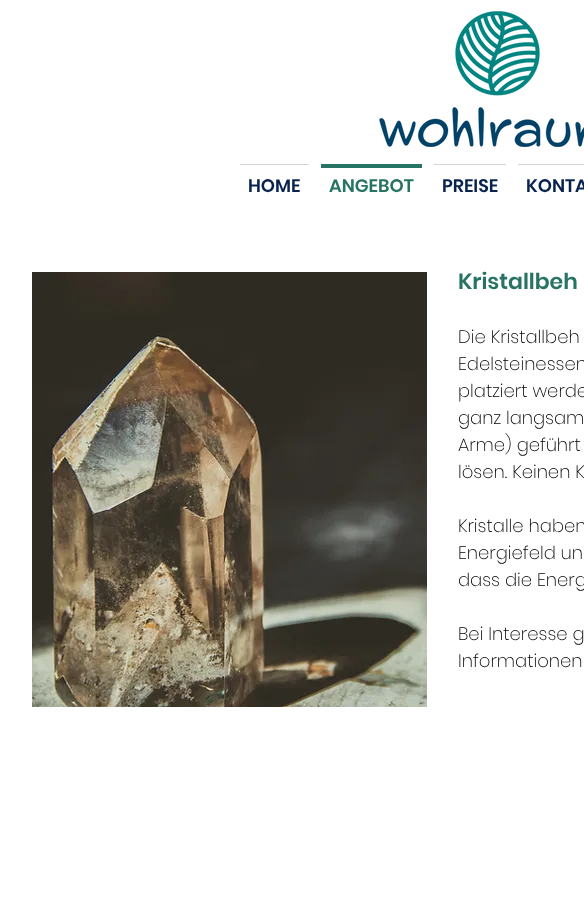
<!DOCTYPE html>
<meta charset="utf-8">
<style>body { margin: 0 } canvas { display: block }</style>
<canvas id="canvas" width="584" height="898"></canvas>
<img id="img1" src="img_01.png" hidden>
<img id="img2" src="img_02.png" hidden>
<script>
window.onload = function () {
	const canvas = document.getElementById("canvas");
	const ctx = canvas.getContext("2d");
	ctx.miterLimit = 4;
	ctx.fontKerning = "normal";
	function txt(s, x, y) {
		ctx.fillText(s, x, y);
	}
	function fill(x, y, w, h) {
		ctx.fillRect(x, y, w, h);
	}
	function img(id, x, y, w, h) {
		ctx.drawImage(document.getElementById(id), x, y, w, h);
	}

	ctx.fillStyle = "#FFFFFF";
	fill(0, 0, 584, 898);
	img("img1", 379, 11, 205, 136);
	ctx.fillStyle = "#D5D5D5";
	fill(240, 164, 69, 1);
	ctx.fillStyle = "#277364";
	fill(321, 164, 101, 4);
	ctx.fillStyle = "#D5D5D5";
	fill(434, 164, 72, 1);
	fill(518, 164, 66, 1);
	img("img2", 32, 272, 395, 435);
	ctx.font = "600 18px Poppins";
	ctx.fillStyle = "#07234E";
	txt("HOME", 248, 192);
	ctx.fillStyle = "#277364";
	txt("ANGEBOT", 329, 192);
	ctx.fillStyle = "#07234E";
	txt("PREISE", 442, 192);
	txt("KONTA", 526, 192);
	ctx.font = "600 22px Poppins";
	ctx.fillStyle = "#277364";
	txt("Kristallbeh", 458, 289);
	ctx.font = "200 18px Poppins";
	ctx.fillStyle = "#000000";
	txt("Die Kristallbeh", 458, 343);
	txt("Edelsteinessen", 458, 370);
	txt("platziert werde", 458, 397);
	txt("ganz langsam", 458, 424);
	txt("Arme) geführt", 458, 451);
	txt("lösen. Keinen K", 458, 478);
	txt("Kristalle haben", 458, 532);
	txt("Energiefeld un", 458, 559);
	txt("dass die Energ", 458, 586);
	txt("Bei Interesse g", 458, 640);
	txt("Informationen", 458, 667);
};
</script>
